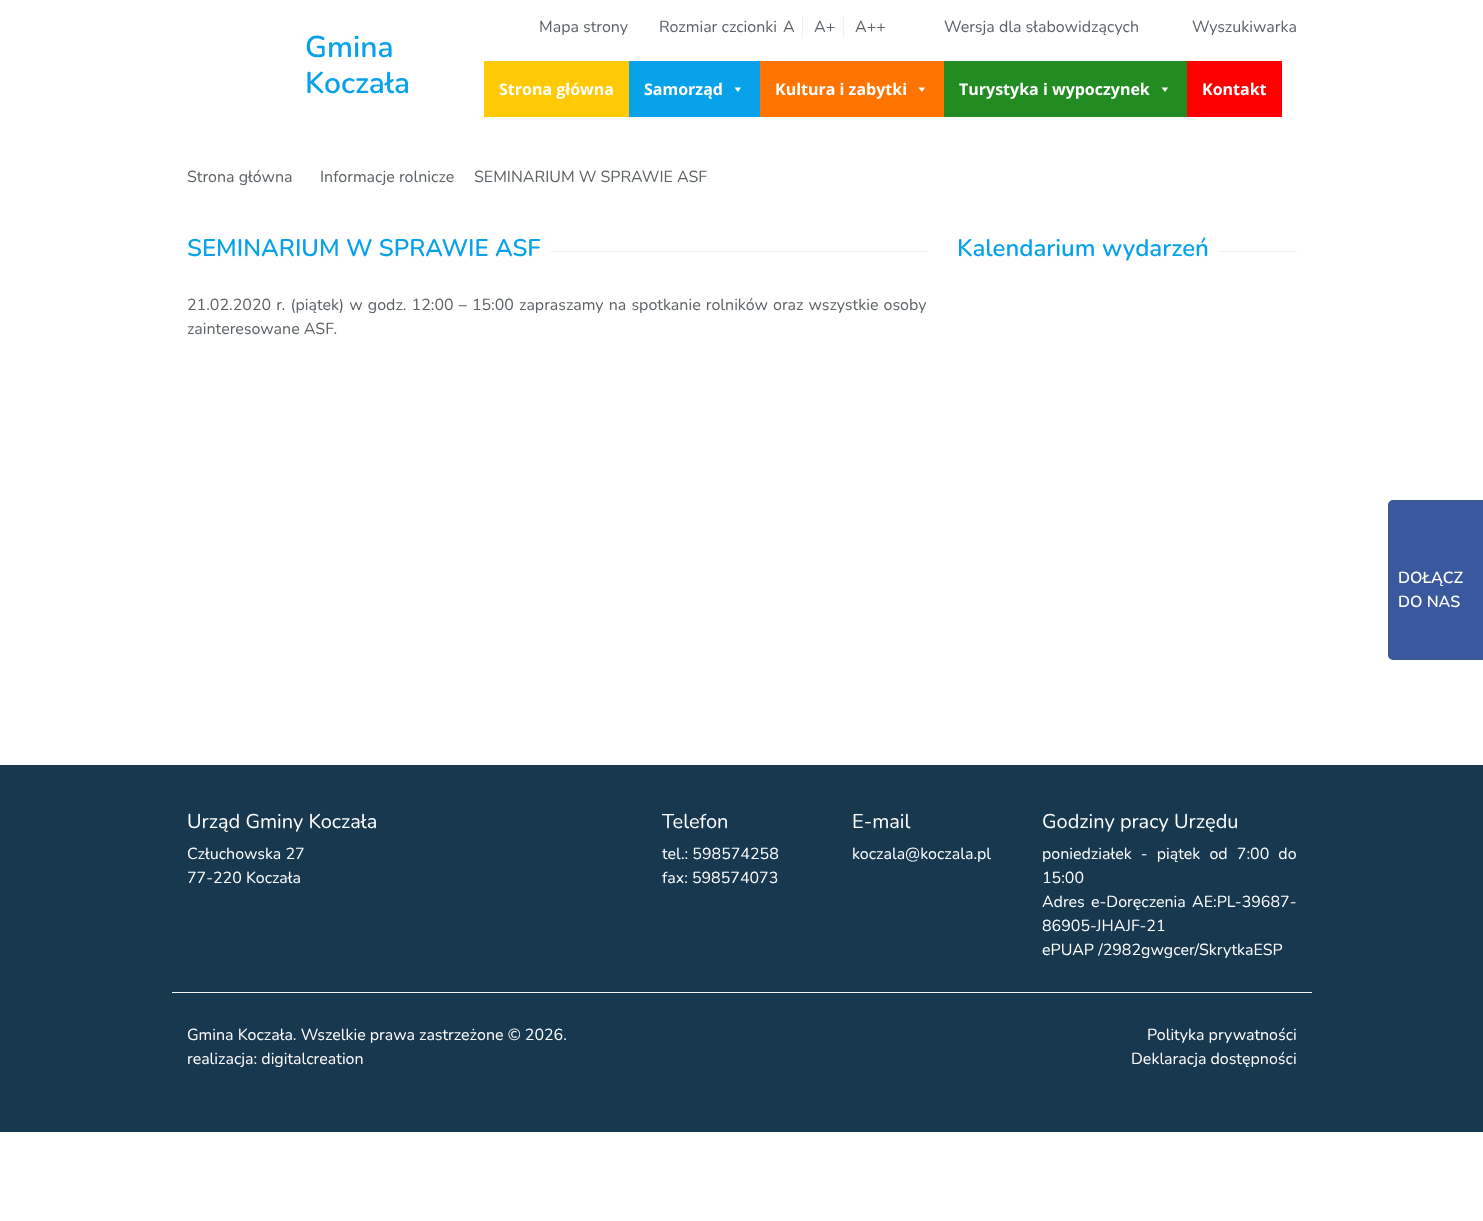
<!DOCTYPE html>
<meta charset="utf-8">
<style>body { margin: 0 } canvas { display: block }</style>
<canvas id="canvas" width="1483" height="1221"></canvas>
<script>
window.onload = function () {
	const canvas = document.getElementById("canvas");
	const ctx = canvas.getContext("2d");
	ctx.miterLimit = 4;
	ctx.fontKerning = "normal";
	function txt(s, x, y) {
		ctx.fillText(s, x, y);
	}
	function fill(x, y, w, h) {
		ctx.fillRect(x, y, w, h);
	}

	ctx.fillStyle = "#FFFFFF";
	fill(0, 0, 1483, 1221);
	ctx.fillStyle = "#EFF0F1";
	fill(802, 16, 1, 22);
	fill(843, 16, 1, 22);
	ctx.fillStyle = "#FFC903";
	fill(484, 61, 145, 56);
	ctx.fillStyle = "#08A2EA";
	fill(629, 61, 131, 56);
	ctx.fillStyle = "#FFFFFF";
	ctx.beginPath();
	ctx.moveTo(741, 87.5);
	ctx.lineTo(738, 92);
	ctx.lineTo(734.5, 87.5);
	ctx.closePath();
	ctx.fill();
	ctx.fillStyle = "#FF7400";
	fill(760, 61, 184, 56);
	ctx.fillStyle = "#FFFFFF";
	ctx.beginPath();
	ctx.moveTo(925, 87.5);
	ctx.lineTo(922, 92);
	ctx.lineTo(918.5, 87.5);
	ctx.closePath();
	ctx.fill();
	ctx.fillStyle = "#228B22";
	fill(944, 61, 243, 56);
	ctx.fillStyle = "#FFFFFF";
	ctx.beginPath();
	ctx.moveTo(1168, 87.5);
	ctx.lineTo(1165, 92);
	ctx.lineTo(1161.5, 87.5);
	ctx.closePath();
	ctx.fill();
	ctx.fillStyle = "#FF0000";
	fill(1187, 61, 95, 56);
	ctx.fillStyle = "#EFF0F1";
	fill(550, 251, 377, 1);
	fill(1218, 251, 79, 1);
	ctx.fillStyle = "#3A589E";
	ctx.beginPath();
	ctx.roundRect(1388, 500, 95, 160, [5, 0, 0, 5]);
	ctx.fill();
	ctx.fillStyle = "#18384F";
	fill(0, 765, 1483, 367);
	ctx.fillStyle = "#F5F6F8";
	fill(172, 992, 1140, 1);
	ctx.font = "600 30px Nunito";
	ctx.fillStyle = "#08A2EA";
	txt("Gmina", 305, 57);
	txt("Koczała", 305, 93);
	ctx.font = "16px Nunito";
	ctx.fillStyle = "#5C6266";
	txt("Mapa strony", 539, 32);
	txt("Rozmiar czcionki", 659, 32);
	txt("A", 783, 32);
	txt("A+", 814, 32);
	txt("A++", 855, 32);
	txt("Wersja dla słabowidzących", 944, 32);
	txt("Wyszukiwarka", 1192, 32);
	ctx.font = "bold 16px Open Sans";
	ctx.fillStyle = "#FFFFFF";
	txt("Strona główna", 499, 95);
	txt("Samorząd", 644, 95);
	txt("Kultura i zabytki", 775, 95);
	txt("Turystyka i wypoczynek", 959, 95);
	txt("Kontakt", 1202, 95);
	ctx.font = "16px Nunito";
	ctx.fillStyle = "#5C6266";
	txt("Strona główna", 187, 182);
	txt("Informacje rolnicze", 320, 182);
	txt("SEMINARIUM W SPRAWIE ASF", 474, 182);
	ctx.font = "600 24px Nunito";
	ctx.fillStyle = "#08A2EA";
	txt("SEMINARIUM W SPRAWIE ASF", 187, 256);
	ctx.wordSpacing = "1px";
	ctx.font = "16px Nunito";
	ctx.fillStyle = "#5C6266";
	txt("21.02.2020 r. (piątek) w godz. 12:00 – 15:00 zapraszamy na spotkanie rolników oraz wszystkie osoby", 187, 310);
	ctx.wordSpacing = "0px";
	txt("zainteresowane ASF.", 187, 334);
	ctx.font = "600 24px Nunito";
	ctx.fillStyle = "#08A2EA";
	txt("Kalendarium wydarzeń", 957, 256);
	ctx.font = "600 16px Nunito";
	ctx.fillStyle = "#FFFFFF";
	txt("DOŁĄCZ", 1398, 583);
	txt("DO NAS", 1398, 607);
	ctx.font = "20px Nunito";
	txt("Urząd Gminy Koczała", 187, 828);
	ctx.font = "16px Nunito";
	txt("Człuchowska 27", 187, 859);
	txt("77-220 Koczała", 187, 883);
	ctx.font = "20px Nunito";
	txt("Telefon", 662, 828);
	ctx.font = "16px Nunito";
	txt("tel.: 598574258", 662, 859);
	txt("fax: 598574073", 662, 883);
	ctx.font = "20px Nunito";
	txt("E-mail", 852, 828);
	ctx.font = "16px Nunito";
	txt("koczala@koczala.pl", 852, 859);
	ctx.font = "20px Nunito";
	txt("Godziny pracy Urzędu", 1042, 828);
	ctx.wordSpacing = "5px";
	ctx.font = "16px Nunito";
	txt("poniedziałek - piątek od 7:00 do", 1042, 859);
	ctx.wordSpacing = "0px";
	txt("15:00", 1042, 883);
	ctx.wordSpacing = "2px";
	txt("Adres e-Doręczenia", 1042, 907);
	ctx.wordSpacing = "0px";
	txt("AE:PL-39687-", 1192, 907);
	txt("86905-JHAJF-21", 1042, 931);
	txt("ePUAP /2982gwgcer/SkrytkaESP", 1042, 955);
	txt("Gmina Koczała. Wszelkie prawa zastrzeżone © 2026.", 187, 1040);
	txt("realizacja: digitalcreation", 187, 1064);
	txt("Polityka prywatności", 1147, 1040);
	txt("Deklaracja dostępności", 1131, 1064);
};
</script>
